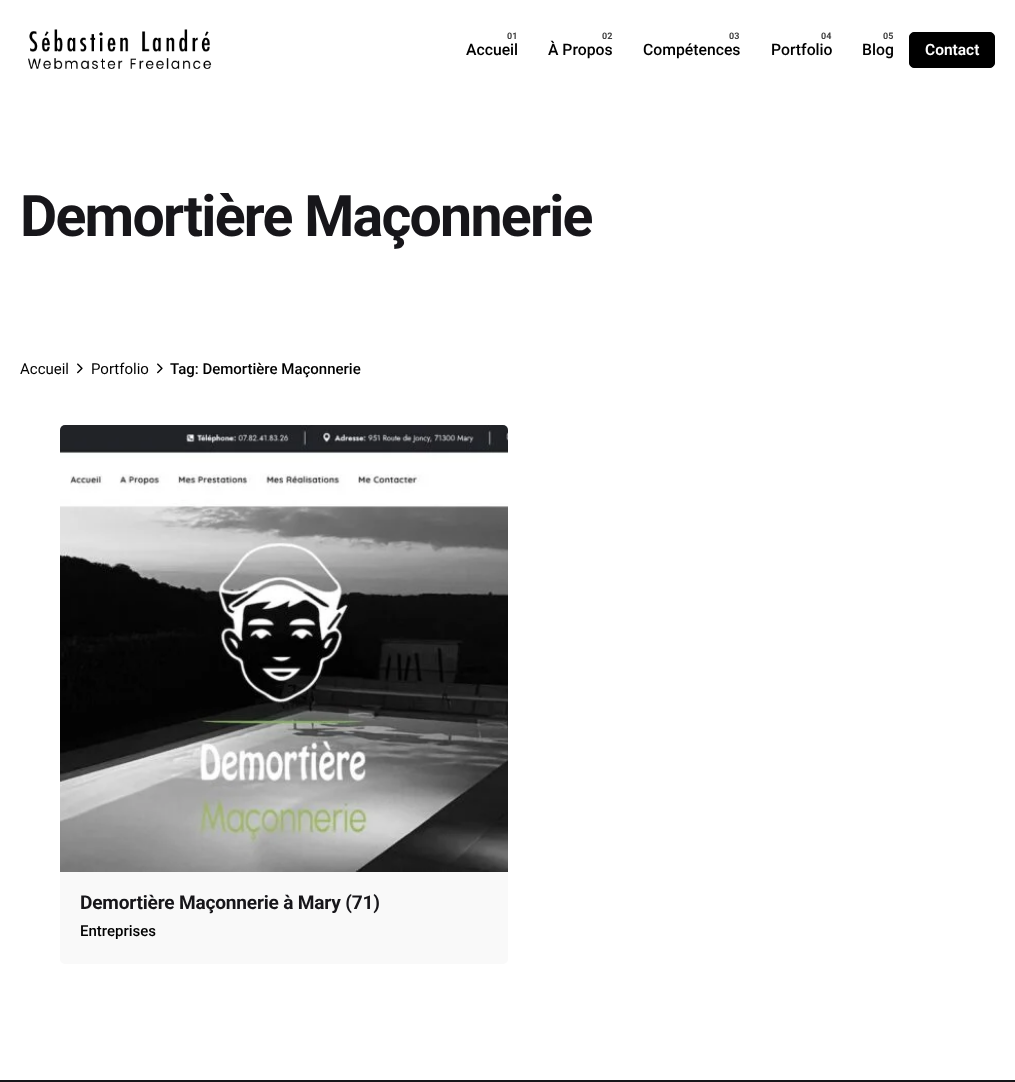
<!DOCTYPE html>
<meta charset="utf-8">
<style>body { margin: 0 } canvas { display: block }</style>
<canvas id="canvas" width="1015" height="1082"></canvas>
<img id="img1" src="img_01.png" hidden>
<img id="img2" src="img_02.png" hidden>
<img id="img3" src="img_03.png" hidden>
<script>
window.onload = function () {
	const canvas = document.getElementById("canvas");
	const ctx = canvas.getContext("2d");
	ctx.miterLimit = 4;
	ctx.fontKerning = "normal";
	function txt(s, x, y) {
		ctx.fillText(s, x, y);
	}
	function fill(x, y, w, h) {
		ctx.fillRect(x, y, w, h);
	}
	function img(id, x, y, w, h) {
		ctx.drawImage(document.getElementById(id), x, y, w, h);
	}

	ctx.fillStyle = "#FFFFFF";
	fill(0, 0, 1015, 1082);
	img("img1", 28, 29, 184, 40);
	ctx.fillStyle = "#000000";
	ctx.beginPath();
	ctx.roundRect(909.5, 32.5, 85, 35, 4.5);
	ctx.fill();
	ctx.strokeStyle = "#000000";
	ctx.stroke();
	img("img2", 77, 363, 6, 11);
	img("img2", 157, 363, 6, 11);
	img("img3", 60, 425, 448, 447);
	ctx.fillStyle = "#F9F9F9";
	ctx.beginPath();
	ctx.roundRect(60, 872, 448, 92, [0, 0, 5, 5]);
	ctx.fill();
	ctx.fillStyle = "#17161A";
	fill(0, 1080, 1015, 2);
	ctx.font = "bold 9px Roboto";
	ctx.fillStyle = "#404040";
	txt("01", 507, 39);
	ctx.font = "500 15.75px Roboto";
	ctx.fillStyle = "#000000";
	txt("Accueil", 466, 55);
	ctx.font = "bold 9px Roboto";
	ctx.fillStyle = "#404040";
	txt("02", 602, 39);
	ctx.font = "500 15.75px Roboto";
	ctx.fillStyle = "#000000";
	txt("À Propos", 548, 55);
	ctx.font = "bold 9px Roboto";
	ctx.fillStyle = "#404040";
	txt("03", 729, 39);
	ctx.font = "500 15.75px Roboto";
	ctx.fillStyle = "#000000";
	txt("Compétences", 643, 55);
	ctx.font = "bold 9px Roboto";
	ctx.fillStyle = "#404040";
	txt("04", 821, 39);
	ctx.font = "500 15.75px Roboto";
	ctx.fillStyle = "#000000";
	txt("Portfolio", 771, 55);
	ctx.font = "bold 9px Roboto";
	ctx.fillStyle = "#404040";
	txt("05", 883, 39);
	ctx.font = "500 15.75px Roboto";
	ctx.fillStyle = "#000000";
	txt("Blog", 862, 55);
	ctx.font = "600 15.5px Roboto";
	ctx.fillStyle = "#FFFFFF";
	txt("Contact", 925, 55);
	ctx.letterSpacing = "-1.75px";
	ctx.font = "bold 57.25px Roboto";
	ctx.fillStyle = "#17161A";
	txt("Demortière Maçonnerie", 20, 236);
	ctx.letterSpacing = "0px";
	ctx.font = "15px Roboto";
	ctx.fillStyle = "#000000";
	txt("Accueil", 20, 374);
	txt("Portfolio", 91, 374);
	ctx.font = "500 15px Roboto";
	txt("Tag: Demortière Maçonnerie", 170, 374);
	ctx.letterSpacing = "-0.2px";
	ctx.font = "bold 19.1px Roboto";
	ctx.fillStyle = "#17161A";
	txt("Demortière Maçonnerie à Mary (71)", 80, 909);
	ctx.letterSpacing = "0px";
	ctx.font = "500 15px Roboto";
	ctx.fillStyle = "#000000";
	txt("Entreprises", 80, 936);
};
</script>
